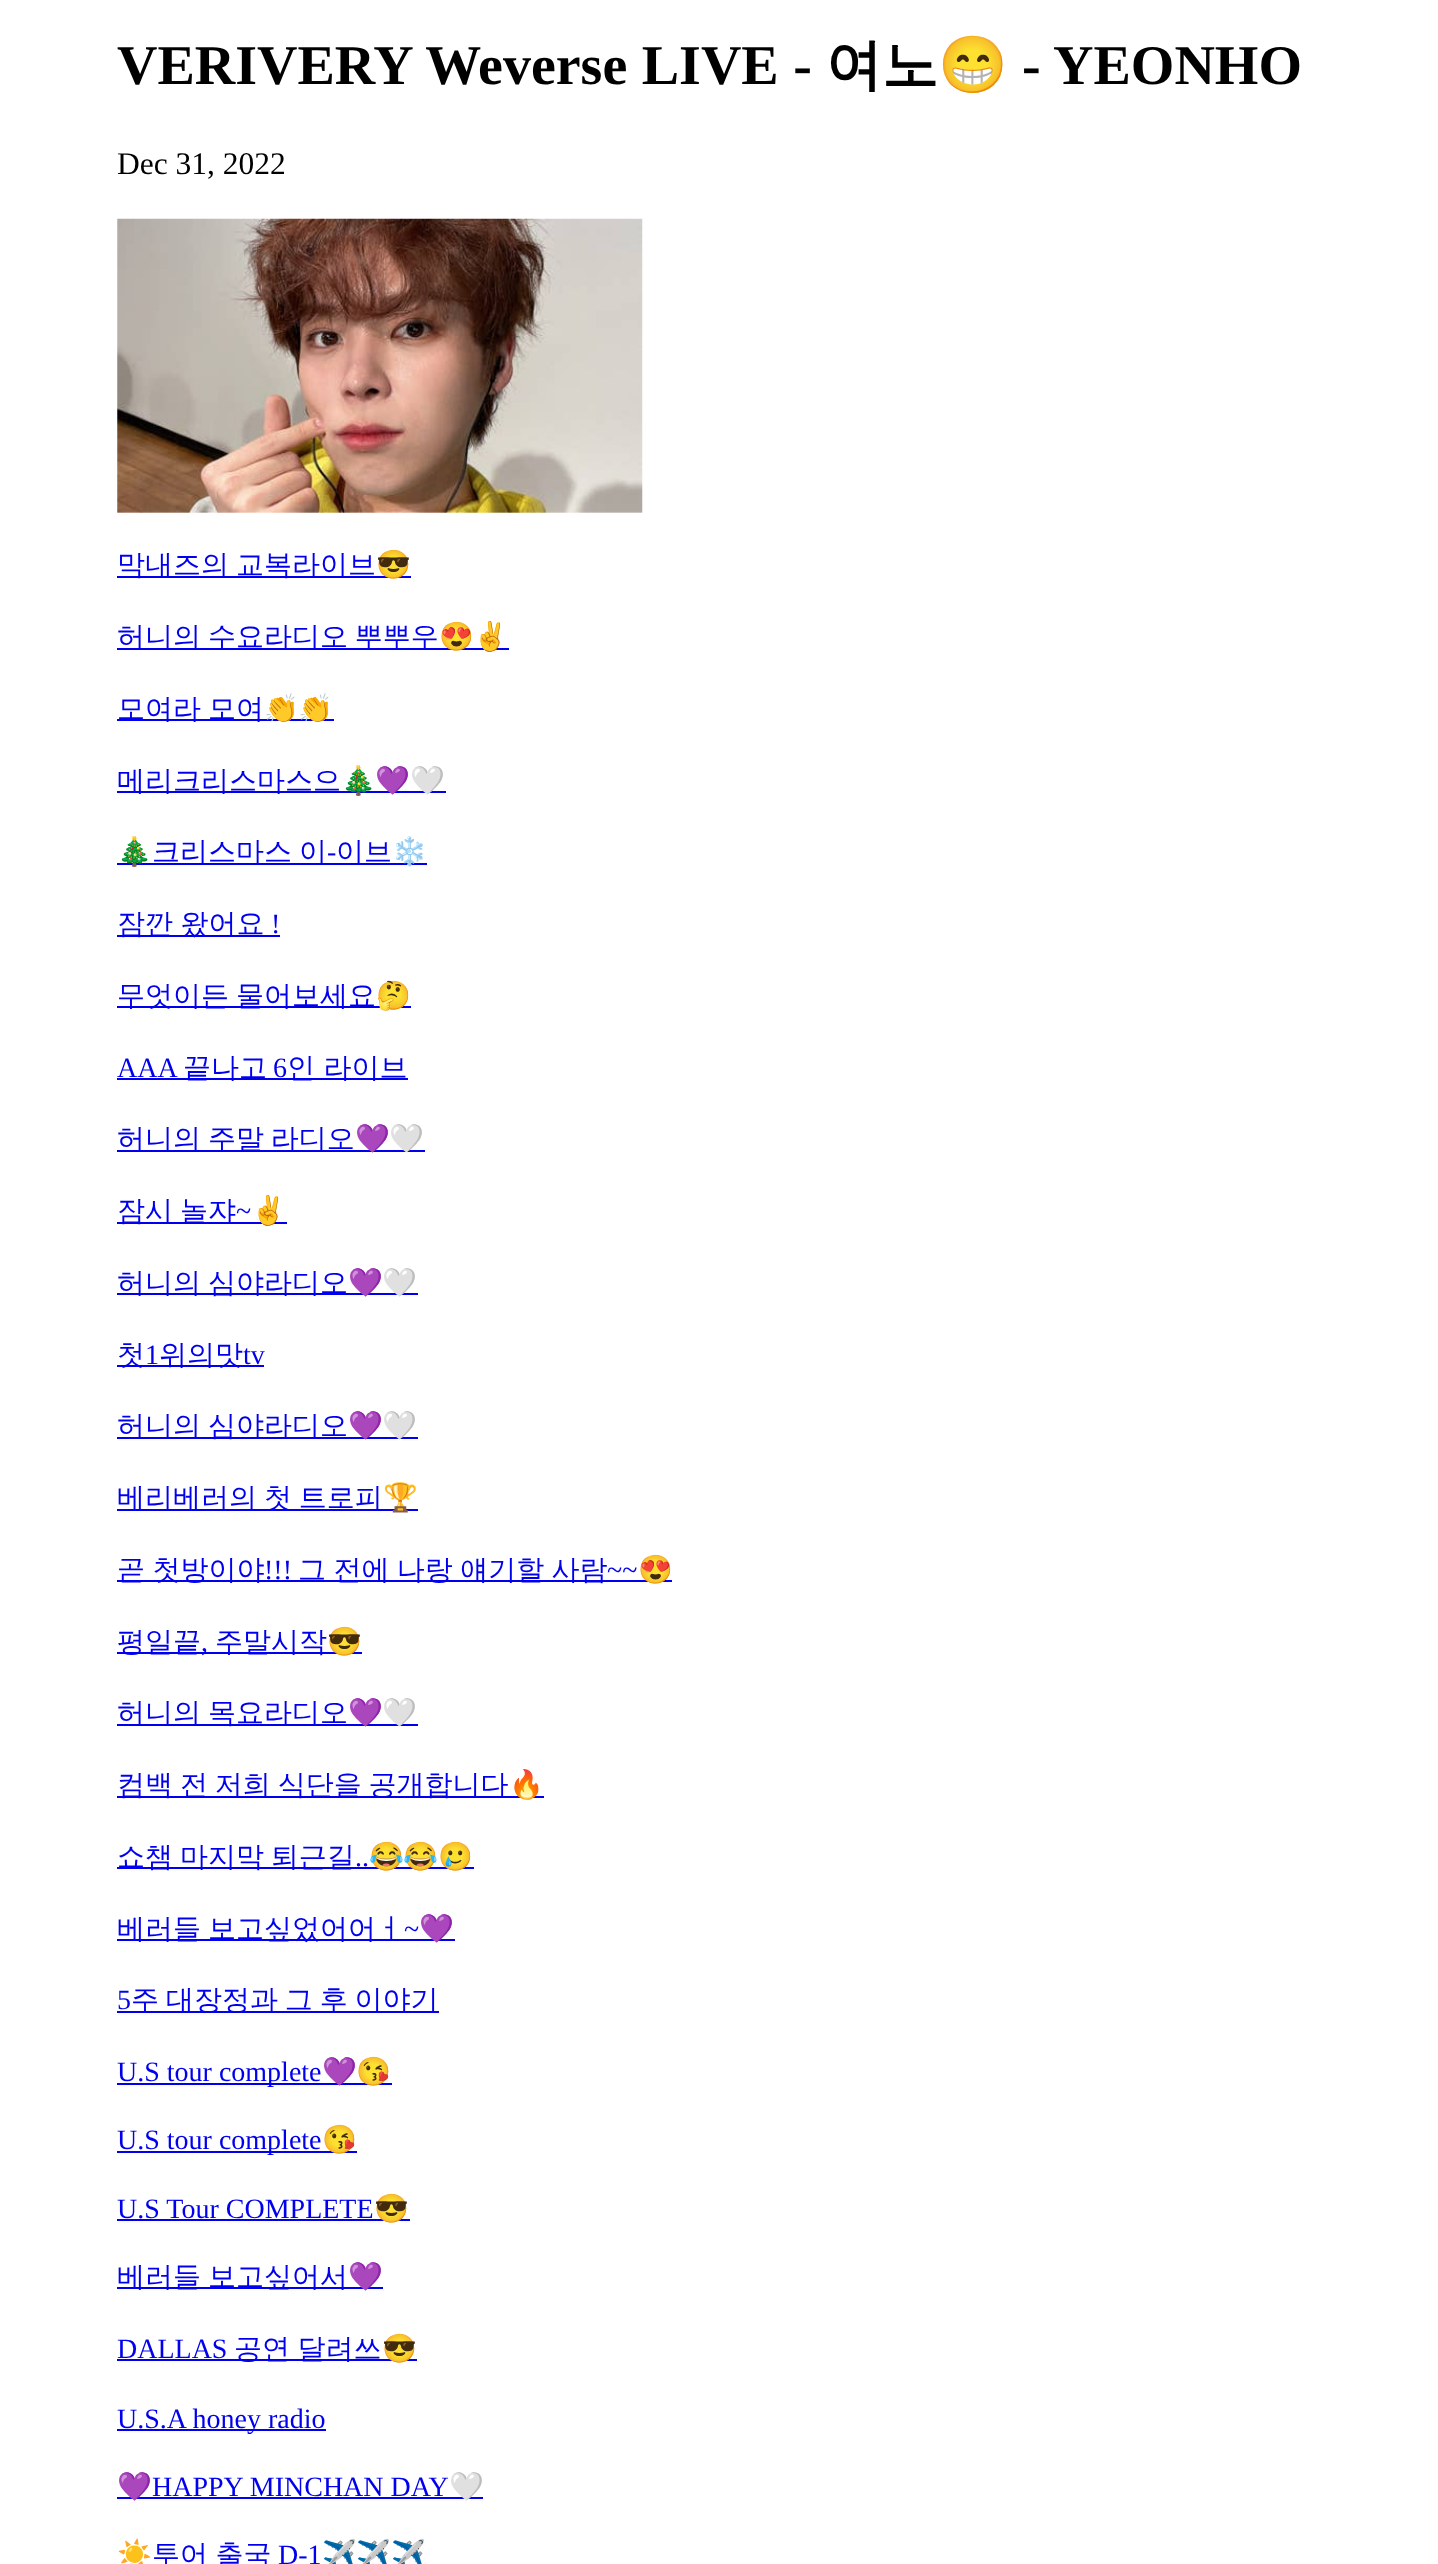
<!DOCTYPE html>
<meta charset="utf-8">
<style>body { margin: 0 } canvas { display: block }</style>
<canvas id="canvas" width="1438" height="2564"></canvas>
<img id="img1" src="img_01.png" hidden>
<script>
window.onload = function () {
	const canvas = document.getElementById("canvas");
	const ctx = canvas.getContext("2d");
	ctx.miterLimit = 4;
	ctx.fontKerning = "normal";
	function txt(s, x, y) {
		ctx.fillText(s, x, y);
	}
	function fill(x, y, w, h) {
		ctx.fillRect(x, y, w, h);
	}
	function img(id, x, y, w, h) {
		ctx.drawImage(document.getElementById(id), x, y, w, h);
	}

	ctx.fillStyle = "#FFFFFF";
	fill(0, 0, 1438, 2564);
	img("img1", 117, 218, 526, 295);
	ctx.fillStyle = "#0000EE";
	fill(117, 576, 294, 2);
	fill(117, 648, 392, 2);
	fill(117, 719, 217, 2);
	fill(117, 791, 329, 2);
	fill(117, 863, 310, 2);
	fill(117, 935, 163, 2);
	fill(117, 1006, 294, 2);
	fill(117, 1078, 291, 2);
	fill(117, 1150, 308, 2);
	fill(117, 1222, 170, 2);
	fill(117, 1293, 301, 2);
	fill(117, 1365, 147, 2);
	fill(117, 1437, 301, 2);
	fill(117, 1509, 301, 2);
	fill(117, 1580, 555, 2);
	fill(117, 1652, 245, 2);
	fill(117, 1724, 301, 2);
	fill(117, 1796, 427, 2);
	fill(117, 1867, 357, 2);
	fill(117, 1939, 338, 2);
	fill(117, 2011, 322, 2);
	fill(117, 2083, 275, 2);
	fill(117, 2151, 240, 2);
	fill(117, 2219, 293, 2);
	fill(117, 2287, 266, 2);
	fill(117, 2359, 300, 2);
	fill(117, 2429, 209, 2);
	fill(117, 2497, 366, 2);
	ctx.wordSpacing = "0.5px";
	ctx.font = "bold 56px Liberation Serif";
	ctx.fillStyle = "#000000";
	txt("VERIVERY Weverse LIVE -", 117, 84);
	ctx.wordSpacing = "0px";
	ctx.font = "bold 56px WenQuanYi Zen Hei";
	txt("여노", 826, 84);
	ctx.font = "bold 56px Noto Color Emoji";
	txt("😁", 938, 84);
	ctx.wordSpacing = "0.5px";
	ctx.font = "bold 56px Liberation Serif";
	txt("- YEONHO", 1022, 84);
	ctx.wordSpacing = "0px";
	ctx.font = "31.5px Liberation Serif";
	txt("Dec 31, 2022", 117, 174);
	ctx.wordSpacing = "-1.5px";
	ctx.font = "500 28px WenQuanYi Zen Hei";
	ctx.fillStyle = "#0000EE";
	txt("막내즈의 교복라이브", 117, 574);
	ctx.wordSpacing = "0px";
	ctx.font = "28px Noto Color Emoji";
	txt("😎", 376, 574);
	ctx.wordSpacing = "-1.5px";
	ctx.font = "500 28px WenQuanYi Zen Hei";
	txt("허니의 수요라디오 뿌뿌우", 117, 646);
	ctx.wordSpacing = "0px";
	ctx.font = "28px Noto Color Emoji";
	txt("😍✌️", 439, 646);
	ctx.wordSpacing = "-1.5px";
	ctx.font = "500 28px WenQuanYi Zen Hei";
	txt("모여라 모여", 117, 718);
	ctx.wordSpacing = "0px";
	ctx.font = "28px Noto Color Emoji";
	txt("👏👏", 264, 718);
	ctx.font = "500 28px WenQuanYi Zen Hei";
	txt("메리크리스마스으", 117, 790);
	ctx.font = "28px Noto Color Emoji";
	txt("🎄💜🤍", 341, 790);
	txt("🎄", 117, 861);
	ctx.wordSpacing = "-1.5px";
	ctx.font = "500 28px WenQuanYi Zen Hei";
	txt("크리스마스 이", 152, 861);
	ctx.wordSpacing = "0px";
	ctx.font = "28px Liberation Serif";
	txt("-", 327, 861);
	ctx.font = "500 28px WenQuanYi Zen Hei";
	txt("이브", 336, 861);
	ctx.font = "28px Noto Color Emoji";
	txt("❄️", 392, 861);
	ctx.wordSpacing = "-1px";
	ctx.font = "500 28px WenQuanYi Zen Hei";
	txt("잠깐 왔어요", 117, 933);
	ctx.wordSpacing = "0px";
	ctx.font = "28px Liberation Serif";
	txt("!", 271, 933);
	ctx.wordSpacing = "-1.5px";
	ctx.font = "500 28px WenQuanYi Zen Hei";
	txt("무엇이든 물어보세요", 117, 1005);
	ctx.wordSpacing = "0px";
	ctx.font = "28px Noto Color Emoji";
	txt("🤔", 376, 1005);
	ctx.font = "28px Liberation Serif";
	txt("AAA", 117, 1077);
	ctx.font = "500 28px WenQuanYi Zen Hei";
	txt("끝나고", 183, 1077);
	ctx.font = "28px Liberation Serif";
	txt("6", 273, 1077);
	ctx.font = "500 28px WenQuanYi Zen Hei";
	txt("인 라이브", 287, 1077);
	ctx.wordSpacing = "-1.5px";
	txt("허니의 주말 라디오", 117, 1148);
	ctx.wordSpacing = "0px";
	ctx.font = "28px Noto Color Emoji";
	txt("💜🤍", 355, 1148);
	ctx.wordSpacing = "-1.5px";
	ctx.font = "500 28px WenQuanYi Zen Hei";
	txt("잠시 놀쟈", 117, 1220);
	ctx.wordSpacing = "0px";
	ctx.font = "28px Liberation Serif";
	txt("~", 236, 1220);
	ctx.font = "28px Noto Color Emoji";
	txt("✌️", 251, 1220);
	ctx.wordSpacing = "-1.5px";
	ctx.font = "500 28px WenQuanYi Zen Hei";
	txt("허니의 심야라디오", 117, 1292);
	ctx.wordSpacing = "0px";
	ctx.font = "28px Noto Color Emoji";
	txt("💜🤍", 348, 1292);
	ctx.font = "500 28px WenQuanYi Zen Hei";
	txt("첫", 117, 1364);
	ctx.font = "28px Liberation Serif";
	txt("1", 145, 1364);
	ctx.font = "500 28px WenQuanYi Zen Hei";
	txt("위의맛", 159, 1364);
	ctx.font = "28px Liberation Serif";
	txt("tv", 243, 1364);
	ctx.wordSpacing = "-1.5px";
	ctx.font = "500 28px WenQuanYi Zen Hei";
	txt("허니의 심야라디오", 117, 1435);
	ctx.wordSpacing = "0px";
	ctx.font = "28px Noto Color Emoji";
	txt("💜🤍", 348, 1435);
	ctx.wordSpacing = "-1.5px";
	ctx.font = "500 28px WenQuanYi Zen Hei";
	txt("베리베러의 첫 트로피", 117, 1507);
	ctx.wordSpacing = "0px";
	ctx.font = "28px Noto Color Emoji";
	txt("🏆", 383, 1507);
	ctx.wordSpacing = "-1px";
	ctx.font = "500 28px WenQuanYi Zen Hei";
	txt("곧 첫방이야", 117, 1579);
	ctx.wordSpacing = "0px";
	ctx.font = "28px Liberation Serif";
	txt("!!!", 264, 1579);
	ctx.wordSpacing = "-1px";
	ctx.font = "500 28px WenQuanYi Zen Hei";
	txt("그 전에 나랑 얘기할 사람", 298, 1579);
	ctx.wordSpacing = "0px";
	ctx.font = "28px Liberation Serif";
	txt("~~", 607, 1579);
	ctx.font = "28px Noto Color Emoji";
	txt("😍", 638, 1579);
	ctx.font = "500 28px WenQuanYi Zen Hei";
	txt("평일끝", 117, 1651);
	ctx.font = "28px Liberation Serif";
	txt(",", 201, 1651);
	ctx.font = "500 28px WenQuanYi Zen Hei";
	txt("주말시작", 215, 1651);
	ctx.font = "28px Noto Color Emoji";
	txt("😎", 327, 1651);
	ctx.wordSpacing = "-1.5px";
	ctx.font = "500 28px WenQuanYi Zen Hei";
	txt("허니의 목요라디오", 117, 1722);
	ctx.wordSpacing = "0px";
	ctx.font = "28px Noto Color Emoji";
	txt("💜🤍", 348, 1722);
	ctx.wordSpacing = "-1.5px";
	ctx.font = "500 28px WenQuanYi Zen Hei";
	txt("컴백 전 저희 식단을 공개합니다", 117, 1794);
	ctx.wordSpacing = "0px";
	ctx.font = "28px Noto Color Emoji";
	txt("🔥", 509, 1794);
	ctx.wordSpacing = "-1.5px";
	ctx.font = "500 28px WenQuanYi Zen Hei";
	txt("쇼챔 마지막 퇴근길", 117, 1866);
	ctx.wordSpacing = "0px";
	ctx.font = "28px Liberation Serif";
	txt("..", 355, 1866);
	ctx.font = "28px Noto Color Emoji";
	txt("😂😂🥲", 369, 1866);
	ctx.wordSpacing = "-1.5px";
	ctx.font = "500 28px WenQuanYi Zen Hei";
	txt("베러들 보고싶었어어ㅓ", 117, 1938);
	ctx.wordSpacing = "0px";
	ctx.font = "28px Liberation Serif";
	txt("~", 404, 1938);
	ctx.font = "28px Noto Color Emoji";
	txt("💜", 419, 1938);
	ctx.font = "28px Liberation Serif";
	txt("5", 117, 2009);
	ctx.wordSpacing = "-1.5px";
	ctx.font = "500 28px WenQuanYi Zen Hei";
	txt("주 대장정과 그 후 이야기", 131, 2009);
	ctx.wordSpacing = "0px";
	ctx.font = "28px Liberation Serif";
	txt("U.S tour complete", 117, 2081);
	ctx.font = "28px Noto Color Emoji";
	txt("💜😘", 322, 2081);
	ctx.font = "28px Liberation Serif";
	txt("U.S tour complete", 117, 2149);
	ctx.font = "28px Noto Color Emoji";
	txt("😘", 322, 2149);
	ctx.font = "28px Liberation Serif";
	txt("U.S Tour COMPLETE", 117, 2218);
	ctx.font = "28px Noto Color Emoji";
	txt("😎", 374, 2218);
	ctx.wordSpacing = "-1.5px";
	ctx.font = "500 28px WenQuanYi Zen Hei";
	txt("베러들 보고싶어서", 117, 2286);
	ctx.wordSpacing = "0px";
	ctx.font = "28px Noto Color Emoji";
	txt("💜", 348, 2286);
	ctx.font = "28px Liberation Serif";
	txt("DALLAS", 117, 2358);
	ctx.wordSpacing = "-1px";
	ctx.font = "500 28px WenQuanYi Zen Hei";
	txt("공연 달려쓰", 234, 2358);
	ctx.wordSpacing = "0px";
	ctx.font = "28px Noto Color Emoji";
	txt("😎", 382, 2358);
	ctx.font = "28px Liberation Serif";
	txt("U.S.A honey radio", 117, 2428);
	ctx.font = "28px Noto Color Emoji";
	txt("💜", 117, 2496);
	ctx.font = "28px Liberation Serif";
	txt("HAPPY MINCHAN DAY", 152, 2496);
	ctx.font = "28px Noto Color Emoji";
	txt("🤍", 449, 2496);
	txt("☀️", 117, 2564);
	ctx.wordSpacing = "-1px";
	ctx.font = "500 28px WenQuanYi Zen Hei";
	txt("투어 출국", 152, 2564);
	ctx.wordSpacing = "0px";
	ctx.font = "28px Liberation Serif";
	txt("D-1", 278, 2564);
	ctx.font = "28px Noto Color Emoji";
	txt("✈️✈️✈️", 322, 2564);
};
</script>
